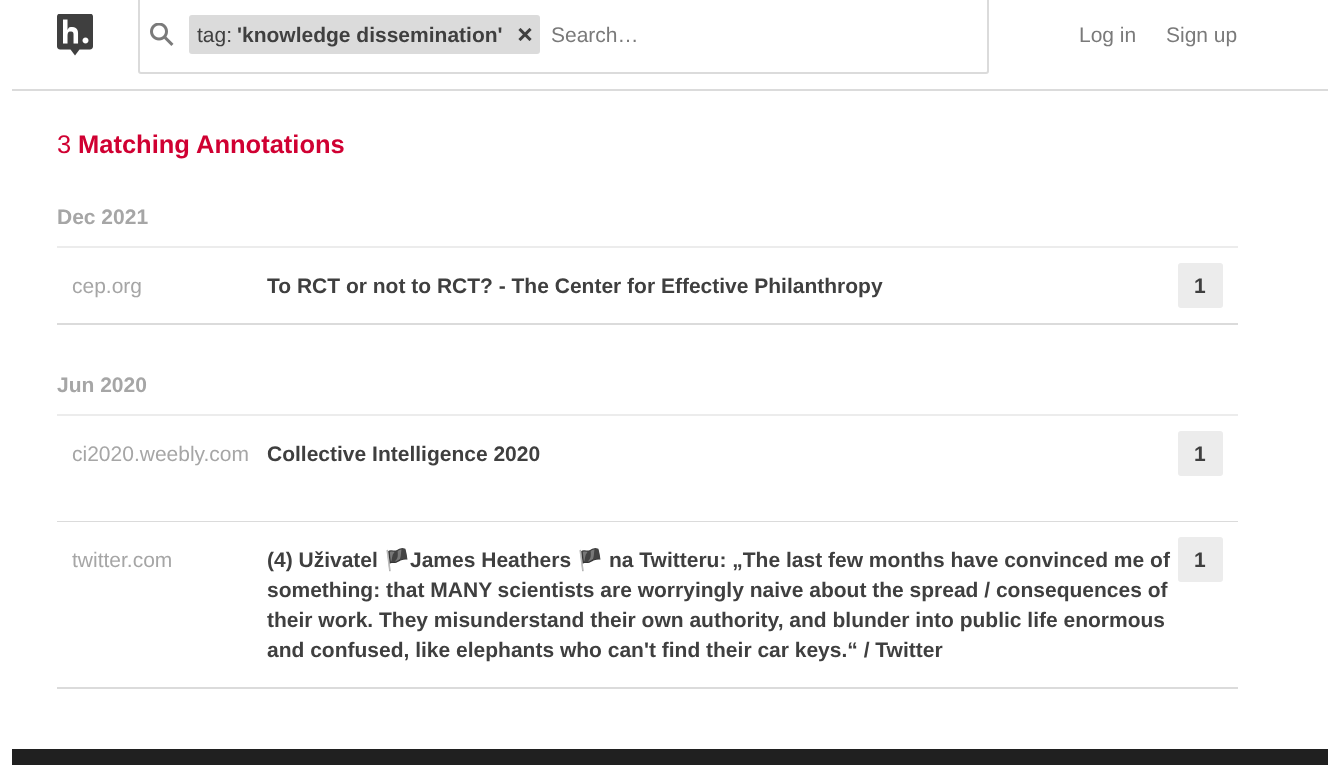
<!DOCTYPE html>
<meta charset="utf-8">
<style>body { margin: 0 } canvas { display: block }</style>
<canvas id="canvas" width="1339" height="765"></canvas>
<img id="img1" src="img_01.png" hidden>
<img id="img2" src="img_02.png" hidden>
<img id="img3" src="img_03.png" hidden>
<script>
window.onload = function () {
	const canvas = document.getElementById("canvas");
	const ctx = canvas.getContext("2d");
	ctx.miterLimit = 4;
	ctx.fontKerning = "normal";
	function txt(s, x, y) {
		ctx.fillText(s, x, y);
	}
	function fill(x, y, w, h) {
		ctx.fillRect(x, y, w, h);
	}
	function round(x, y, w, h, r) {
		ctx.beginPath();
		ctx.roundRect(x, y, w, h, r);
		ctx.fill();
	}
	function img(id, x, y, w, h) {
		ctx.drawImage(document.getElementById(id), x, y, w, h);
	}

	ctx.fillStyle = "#FFFFFF";
	fill(0, 0, 1339, 765);
	ctx.fillStyle = "#DBDBDB";
	fill(12, 89, 1316, 2);
	img("img1", 57, 14, 36, 42);
	ctx.beginPath();
	ctx.roundRect(139, -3, 849, 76, 2);
	ctx.strokeStyle = "#DBDBDB";
	ctx.lineWidth = 2;
	ctx.stroke();
	img("img2", 150, 23, 24, 23);
	round(189, 15, 351, 39, 3);
	img("img3", 518, 28, 14, 13);
	ctx.fillStyle = "#ECECEC";
	fill(57, 246, 1181, 2);
	ctx.fillStyle = "#DBDBDB";
	fill(57, 323, 1181, 2);
	ctx.fillStyle = "#ECECEC";
	round(1178, 263, 45, 45, 3);
	fill(57, 414, 1181, 2);
	ctx.fillStyle = "#DBDBDB";
	fill(57, 521, 1181, 1);
	ctx.fillStyle = "#ECECEC";
	round(1178, 431, 45, 45, 3);
	ctx.fillStyle = "#DBDBDB";
	fill(57, 687, 1181, 2);
	ctx.fillStyle = "#ECECEC";
	round(1178, 537, 45, 45, 3);
	ctx.fillStyle = "#202020";
	fill(12, 749, 1316, 16);
	ctx.font = "21px Liberation Sans";
	ctx.fillStyle = "#3F3F3F";
	txt("tag:", 197, 42);
	ctx.font = "bold 21px Liberation Sans";
	txt("'knowledge dissemination'", 237, 42);
	ctx.font = "21px Liberation Sans";
	ctx.fillStyle = "#7A7A7A";
	txt("Search…", 551, 42);
	txt("Log in", 1079, 42);
	txt("Sign up", 1166, 42);
	ctx.font = "25.5px Liberation Sans";
	ctx.fillStyle = "#D00032";
	txt("3", 57, 153);
	ctx.font = "bold 25.5px Liberation Sans";
	txt("Matching Annotations", 78, 153);
	ctx.font = "bold 21px Liberation Sans";
	ctx.fillStyle = "#A6A6A6";
	txt("Dec 2021", 57, 224);
	ctx.font = "21px Liberation Sans";
	txt("cep.org", 72, 293);
	ctx.font = "bold 21px Liberation Sans";
	ctx.fillStyle = "#3F3F3F";
	txt("To RCT or not to RCT? - The Center for Effective Philanthropy", 267, 293);
	txt("1", 1194, 293);
	ctx.fillStyle = "#A6A6A6";
	txt("Jun 2020", 57, 392);
	ctx.font = "21px Liberation Sans";
	txt("ci2020.weebly.com", 72, 461);
	ctx.font = "bold 21px Liberation Sans";
	ctx.fillStyle = "#3F3F3F";
	txt("Collective Intelligence 2020", 267, 461);
	txt("1", 1194, 461);
	ctx.font = "21px Liberation Sans";
	ctx.fillStyle = "#A6A6A6";
	txt("twitter.com", 72, 567);
	ctx.font = "bold 21px Liberation Sans";
	ctx.fillStyle = "#3F3F3F";
	txt("(4) Uživatel", 267, 567);
	ctx.font = "bold 21px Noto Color Emoji";
	txt("🏴", 384, 567);
	ctx.font = "bold 21px Liberation Sans";
	txt("James Heathers", 410, 567);
	ctx.font = "bold 21px Noto Color Emoji";
	txt("🏴", 577, 567);
	ctx.font = "bold 21px Liberation Sans";
	txt("na Twitteru: „The last few months have convinced me of", 609, 567);
	txt("something: that MANY scientists are worryingly naive about the spread / consequences of", 267, 597);
	txt("their work. They misunderstand their own authority, and blunder into public life enormous", 267, 627);
	txt("and confused, like elephants who can't find their car keys.“ / Twitter", 267, 657);
	txt("1", 1194, 567);
};
</script>
